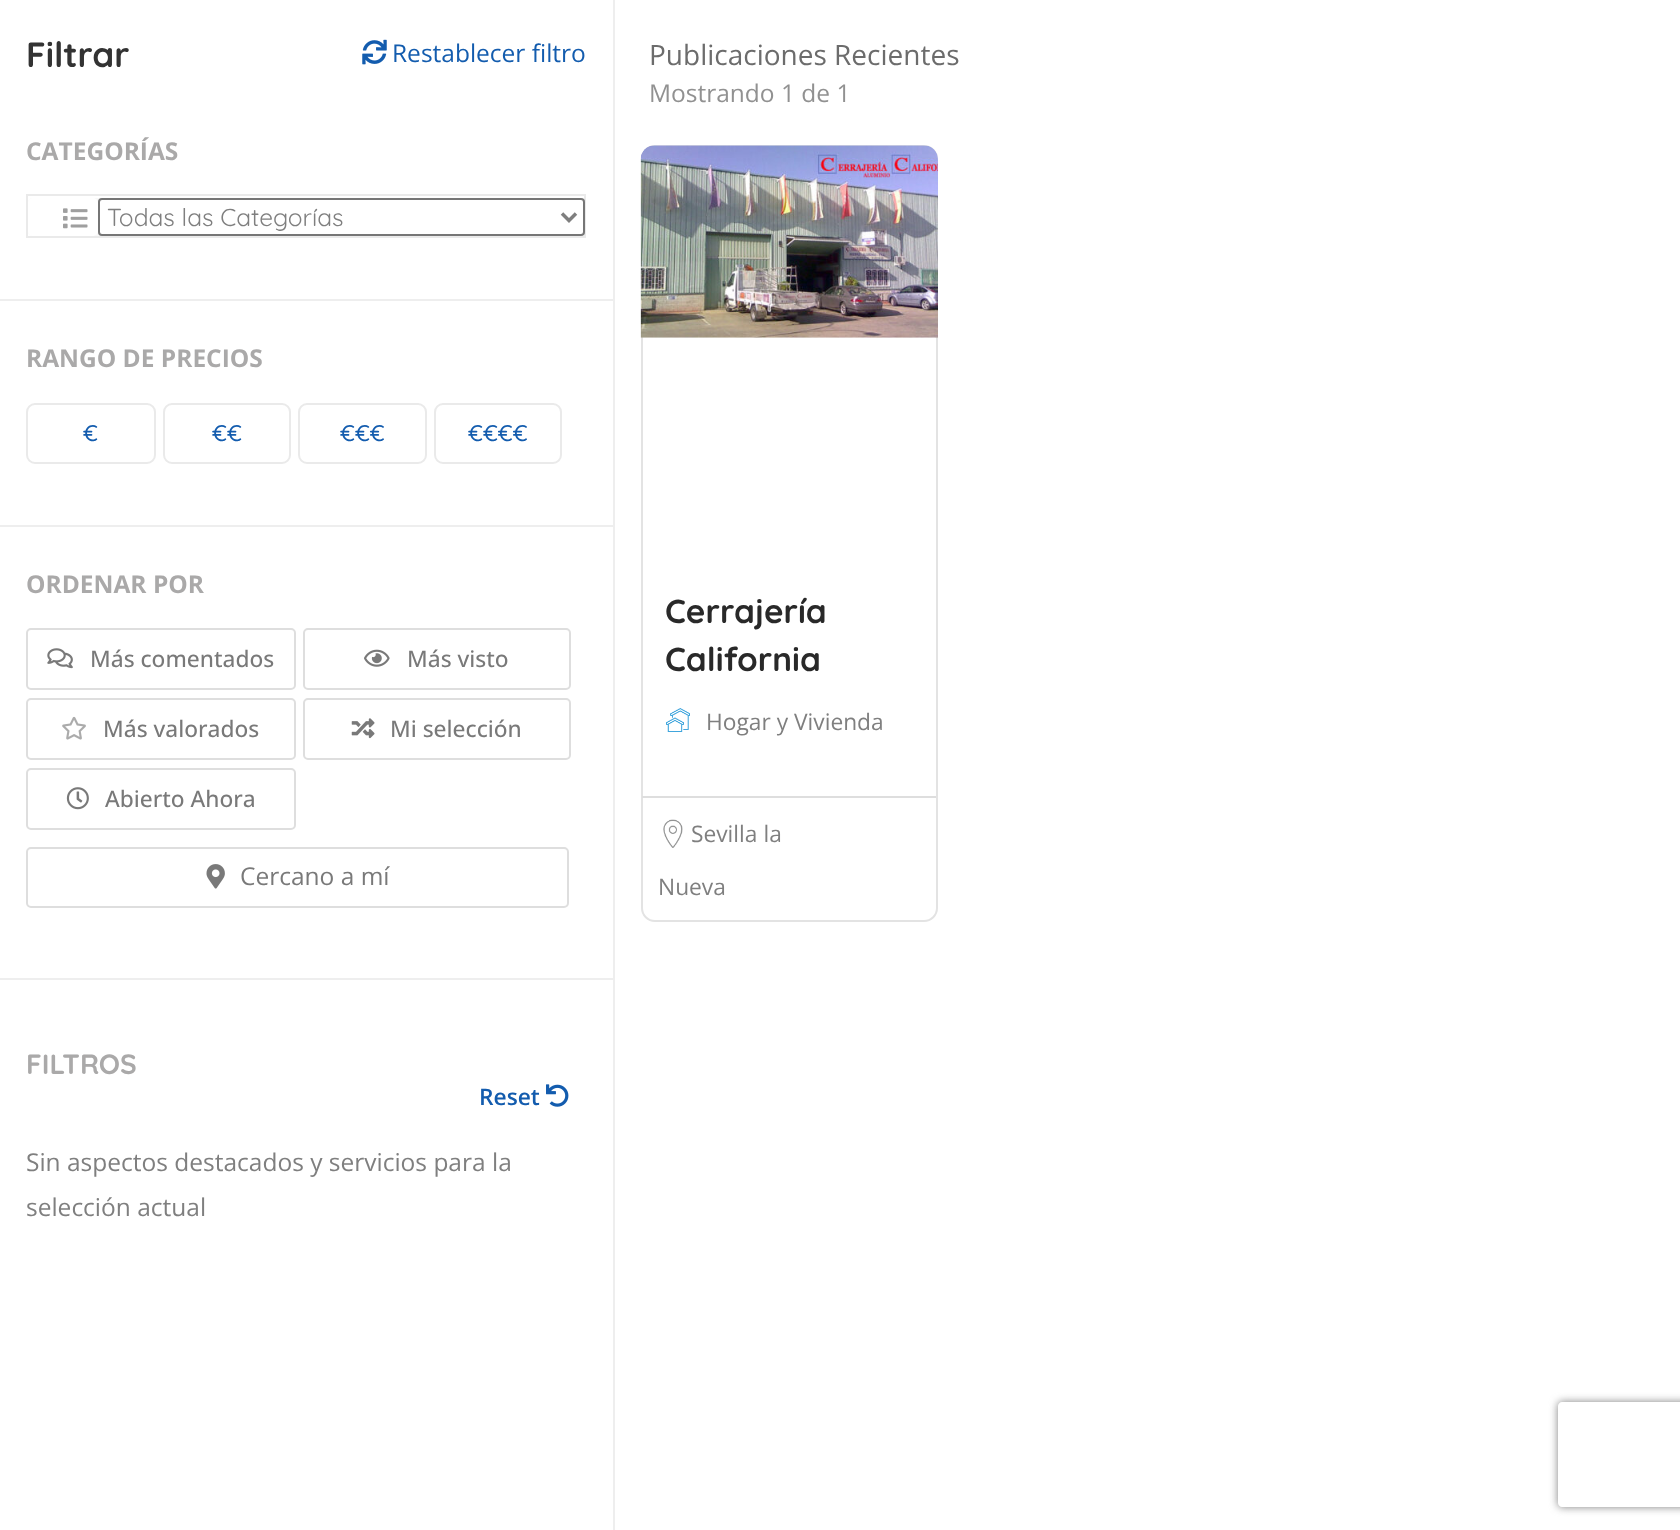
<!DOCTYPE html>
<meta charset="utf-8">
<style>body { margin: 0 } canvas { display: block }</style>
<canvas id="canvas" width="1680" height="1530"></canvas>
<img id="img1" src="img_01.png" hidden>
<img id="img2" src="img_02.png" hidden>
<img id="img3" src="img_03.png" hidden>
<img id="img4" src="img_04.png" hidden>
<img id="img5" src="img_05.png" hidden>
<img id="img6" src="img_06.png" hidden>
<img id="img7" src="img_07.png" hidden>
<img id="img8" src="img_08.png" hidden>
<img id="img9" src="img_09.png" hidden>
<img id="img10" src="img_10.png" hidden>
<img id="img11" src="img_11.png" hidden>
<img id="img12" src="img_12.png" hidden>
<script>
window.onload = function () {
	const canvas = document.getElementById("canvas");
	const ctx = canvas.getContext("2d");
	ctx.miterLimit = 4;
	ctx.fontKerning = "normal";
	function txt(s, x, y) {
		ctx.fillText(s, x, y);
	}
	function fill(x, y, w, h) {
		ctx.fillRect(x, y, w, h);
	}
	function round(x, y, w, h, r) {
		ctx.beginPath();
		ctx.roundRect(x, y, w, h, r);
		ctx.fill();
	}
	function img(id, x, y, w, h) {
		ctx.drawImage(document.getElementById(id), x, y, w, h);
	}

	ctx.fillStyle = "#FFFFFF";
	fill(0, 0, 1680, 1530);
	img("img1", 362, 39, 25, 26);
	ctx.fillStyle = "#EEEEEE";
	fill(0, 299, 613, 2);
	ctx.strokeStyle = "#EAEAEA";
	ctx.lineWidth = 2;
	ctx.strokeRect(27, 195, 558, 42);
	ctx.fillStyle = "#F8F8F8";
	round(28, 198, 557, 38, 5);
	ctx.fillStyle = "#FFFFFF";
	round(28, 198, 70, 38, 5);
	img("img2", 63, 208, 25, 21);
	ctx.beginPath();
	ctx.roundRect(99, 199, 485, 36, 3);
	ctx.fill();
	ctx.strokeStyle = "#767676";
	ctx.stroke();
	ctx.beginPath();
	ctx.moveTo(562, 213.5);
	ctx.lineTo(569, 220.5);
	ctx.lineTo(576, 213.5);
	ctx.strokeStyle = "#7F7F7F";
	ctx.lineWidth = 3.5;
	ctx.stroke();
	ctx.fillStyle = "#EEEEEE";
	fill(0, 525, 613, 2);
	ctx.beginPath();
	ctx.roundRect(27, 404, 128, 59, 8);
	ctx.strokeStyle = "#EAEAEA";
	ctx.lineWidth = 2;
	ctx.stroke();
	ctx.beginPath();
	ctx.roundRect(164, 404, 126, 59, 8);
	ctx.stroke();
	ctx.beginPath();
	ctx.roundRect(299, 404, 127, 59, 8);
	ctx.stroke();
	ctx.beginPath();
	ctx.roundRect(435, 404, 126, 59, 8);
	ctx.stroke();
	fill(0, 978, 613, 2);
	ctx.beginPath();
	ctx.roundRect(27, 629, 268, 60, 4);
	ctx.strokeStyle = "#DEDEDE";
	ctx.stroke();
	img("img3", 47, 648, 26, 21);
	ctx.beginPath();
	ctx.roundRect(304, 629, 266, 60, 4);
	ctx.stroke();
	img("img4", 364, 649, 26, 18);
	ctx.beginPath();
	ctx.roundRect(27, 699, 268, 60, 4);
	ctx.stroke();
	img("img5", 62, 716, 24, 24);
	ctx.beginPath();
	ctx.roundRect(304, 699, 266, 60, 4);
	ctx.stroke();
	img("img6", 351, 718, 24, 21);
	ctx.beginPath();
	ctx.roundRect(27, 769, 268, 60, 4);
	ctx.stroke();
	img("img7", 66, 787, 23, 23);
	ctx.beginPath();
	ctx.roundRect(27, 848, 541, 59, 4);
	ctx.stroke();
	img("img8", 206, 864, 19, 25);
	img("img9", 546, 1084, 23, 23);
	fill(613, 0, 2, 1530);
	ctx.beginPath();
	ctx.roundRect(642, 146, 295, 775, 13);
	ctx.strokeStyle = "#E3E3E3";
	ctx.stroke();
	img("img10", 640, 145, 298, 193);
	img("img11", 666, 708, 24, 24);
	ctx.fillStyle = "#DEDEDE";
	fill(642, 796, 294, 2);
	img("img12", 663, 819, 20, 29);
	ctx.save();
	ctx.beginPath();
	ctx.moveTo(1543, 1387);
	ctx.lineTo(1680, 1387);
	ctx.lineTo(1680, 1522);
	ctx.lineTo(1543, 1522);
	ctx.closePath();
	ctx.moveTo(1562, 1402);
	ctx.lineTo(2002, 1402);
	ctx.bezierCurveTo(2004, 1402, 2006, 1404, 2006, 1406);
	ctx.lineTo(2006, 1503);
	ctx.bezierCurveTo(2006, 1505, 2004, 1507, 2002, 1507);
	ctx.lineTo(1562, 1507);
	ctx.bezierCurveTo(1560, 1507, 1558, 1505, 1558, 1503);
	ctx.lineTo(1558, 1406);
	ctx.bezierCurveTo(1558, 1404, 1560, 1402, 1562, 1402);
	ctx.closePath();
	ctx.clip("evenodd");
	ctx.fillStyle = "#808080";
	ctx.filter = "blur(4.5px)";
	ctx.beginPath();
	ctx.roundRect(1558, 1402, 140, 105, 4);
	ctx.fill();
	ctx.filter = "none";
	ctx.restore();
	ctx.font = "bold 35px Quicksand";
	ctx.fillStyle = "#333333";
	txt("Filtrar", 26, 67);
	ctx.font = "24.5px Open Sans";
	ctx.fillStyle = "#135CAE";
	txt("Restablecer filtro", 392, 62);
	ctx.font = "bold 24.5px Open Sans";
	ctx.fillStyle = "#AAA9A9";
	txt("CATEGORÍAS", 26, 160);
	ctx.font = "24.5px Quicksand";
	ctx.fillStyle = "#7F7F7F";
	txt("Todas las Categorías", 107, 226);
	ctx.font = "bold 24.5px Open Sans";
	ctx.fillStyle = "#AAA9A9";
	txt("RANGO DE PRECIOS", 26, 367);
	ctx.font = "500 22.75px Quicksand";
	ctx.fillStyle = "#135CAE";
	txt("€", 83, 441);
	txt("€€", 212, 441);
	txt("€€€", 340, 441);
	txt("€€€€", 468, 441);
	ctx.font = "bold 24.5px Open Sans";
	ctx.fillStyle = "#AAA9A9";
	txt("ORDENAR POR", 26, 593);
	ctx.font = "500 22.75px Open Sans";
	ctx.fillStyle = "#797979";
	txt("Más comentados", 90, 667);
	txt("Más visto", 407, 667);
	txt("Más valorados", 103, 737);
	txt("Mi selección", 390, 737);
	txt("Abierto Ahora", 105, 807);
	ctx.font = "24.5px Open Sans";
	txt("Cercano a mí", 240, 885);
	ctx.font = "bold 28px Quicksand";
	ctx.fillStyle = "#AAA9A9";
	txt("FILTROS", 26, 1074);
	ctx.font = "600 22.75px Open Sans";
	ctx.fillStyle = "#135CAE";
	txt("Reset", 479, 1105);
	ctx.font = "24.5px Open Sans";
	ctx.fillStyle = "#7F7F7F";
	txt("Sin aspectos destacados y servicios para la", 26, 1171);
	txt("selección actual", 26, 1216);
	ctx.font = "28px Open Sans";
	ctx.fillStyle = "#6C6C6C";
	txt("Publicaciones Recientes", 649, 65);
	ctx.font = "24.5px Open Sans";
	ctx.fillStyle = "#919191";
	txt("Mostrando 1 de 1", 649, 102);
	ctx.font = "bold 33.25px Quicksand";
	ctx.fillStyle = "#292929";
	txt("Cerrajería", 665, 623);
	txt("California", 665, 671);
	ctx.font = "22.75px Open Sans";
	ctx.fillStyle = "#7F7F7F";
	txt("Hogar y Vivienda", 706, 730);
	txt("Sevilla la", 691, 842);
	txt("Nueva", 658, 895);
};
</script>
